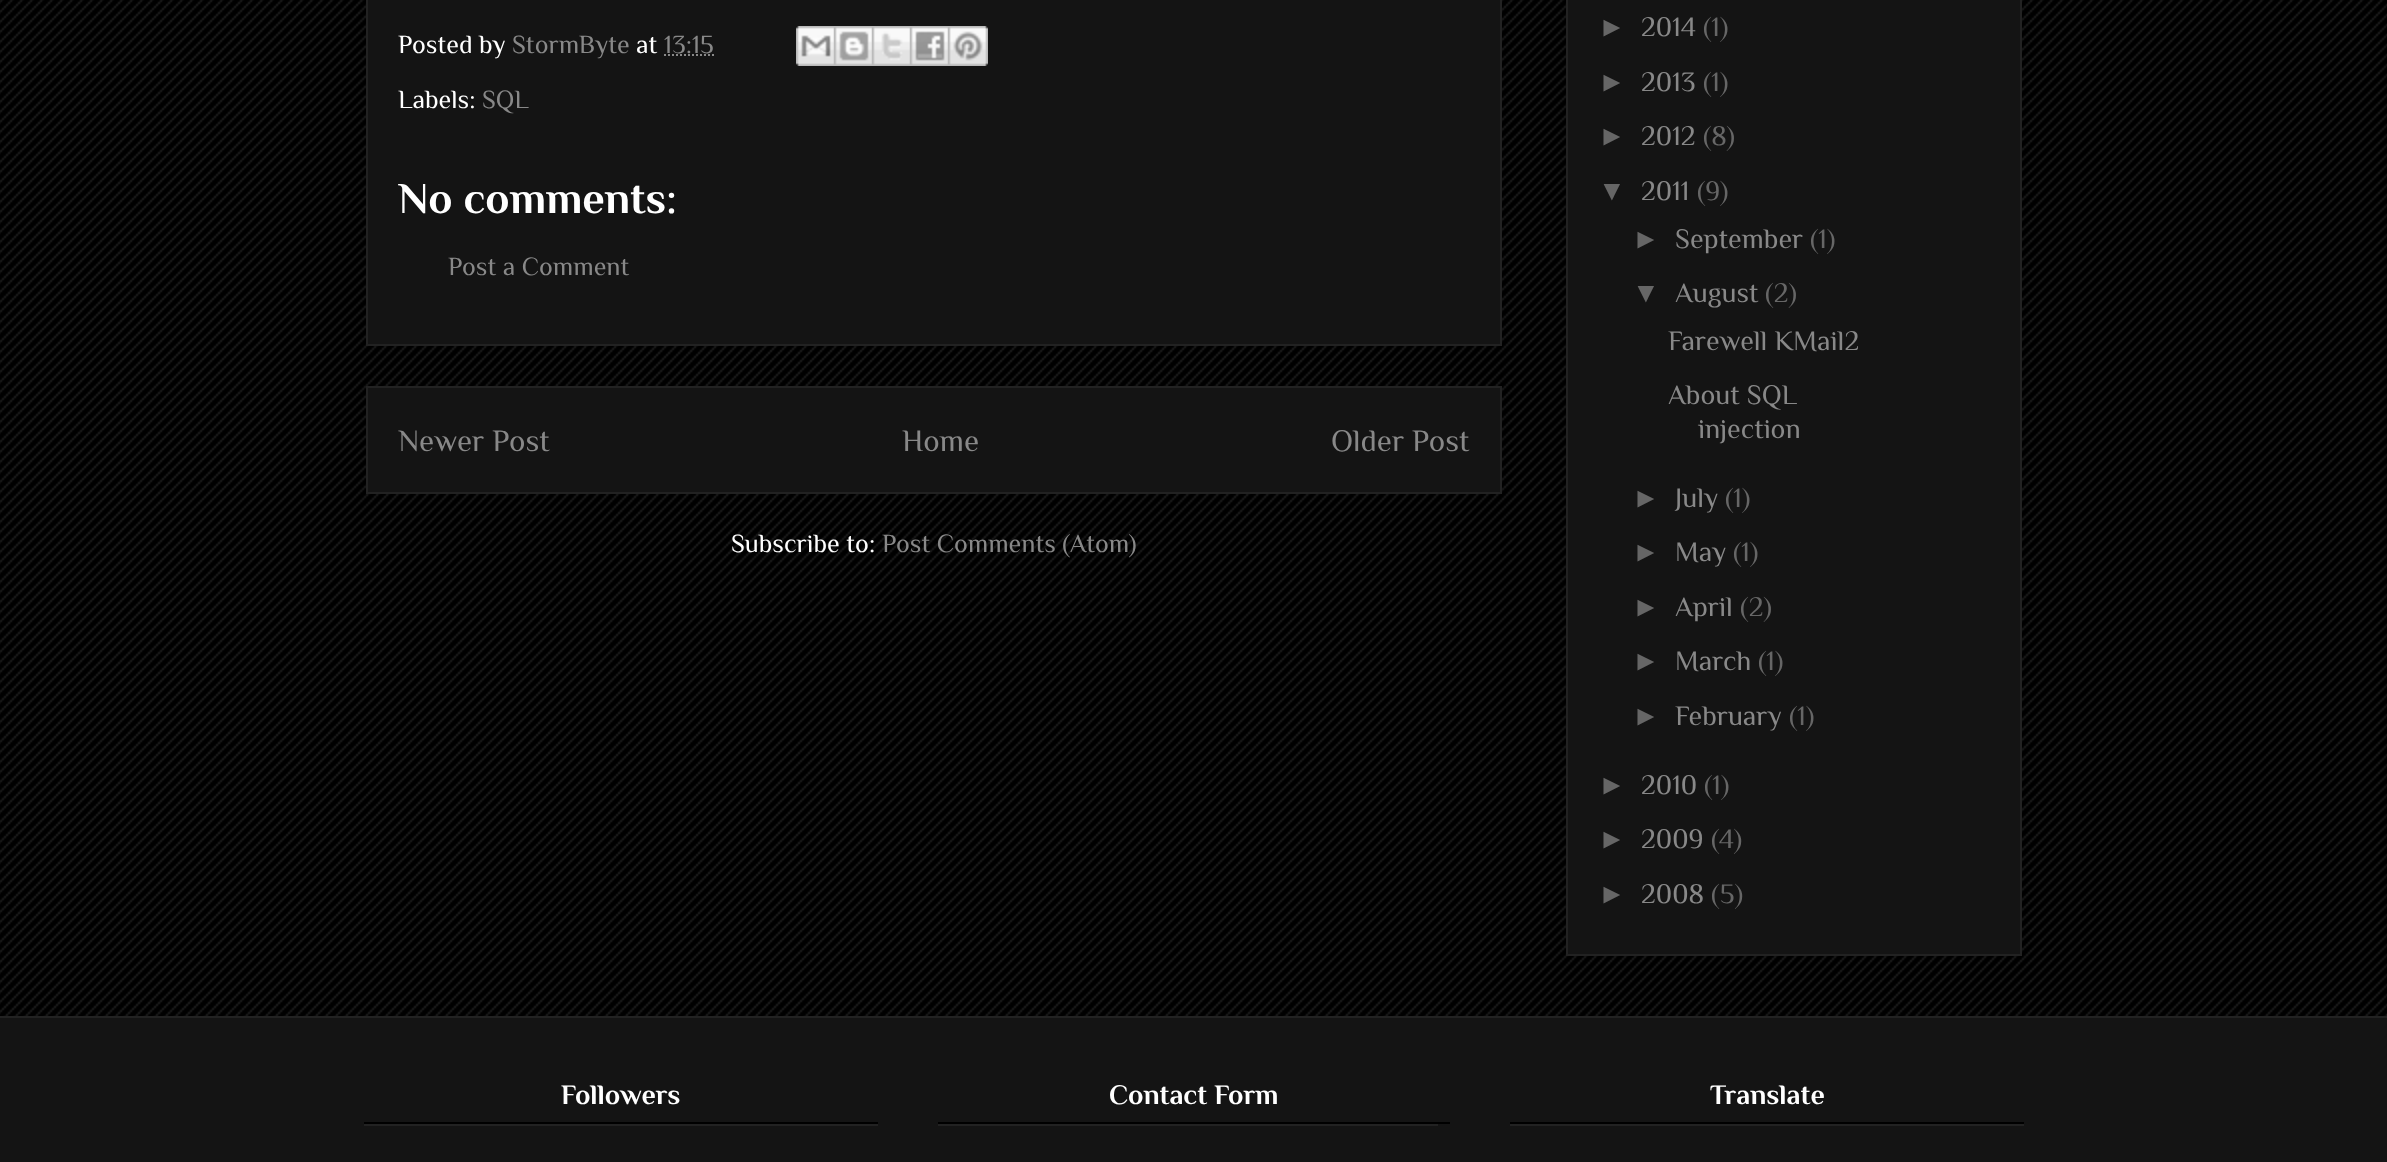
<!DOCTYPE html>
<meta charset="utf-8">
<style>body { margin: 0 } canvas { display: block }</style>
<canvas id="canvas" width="2387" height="1162"></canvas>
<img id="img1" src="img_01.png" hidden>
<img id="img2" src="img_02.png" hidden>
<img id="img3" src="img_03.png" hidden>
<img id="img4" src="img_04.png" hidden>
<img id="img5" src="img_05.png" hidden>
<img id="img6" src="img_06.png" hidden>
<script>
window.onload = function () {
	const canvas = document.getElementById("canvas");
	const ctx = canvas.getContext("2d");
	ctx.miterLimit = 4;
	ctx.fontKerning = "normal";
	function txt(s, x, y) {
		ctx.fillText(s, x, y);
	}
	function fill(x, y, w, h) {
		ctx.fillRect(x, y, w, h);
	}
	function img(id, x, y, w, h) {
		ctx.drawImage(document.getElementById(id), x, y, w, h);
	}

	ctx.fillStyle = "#000000";
	fill(0, 0, 2387, 1162);
	img("img1", 0, 0, 2387, 1016);
	ctx.fillStyle = "#141414";
	ctx.beginPath();
	ctx.rect(367, -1, 1134, 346);
	ctx.fill();
	ctx.strokeStyle = "#222222";
	ctx.lineWidth = 2;
	ctx.stroke();
	ctx.beginPath();
	ctx.moveTo(664, 55);
	ctx.lineTo(714, 55);
	ctx.strokeStyle = "#888888";
	ctx.setLineDash([2, 2]);
	ctx.stroke();
	img("img2", 796, 26, 38, 40);
	img("img3", 834, 26, 38, 40);
	img("img4", 872, 26, 38, 40);
	img("img5", 910, 26, 38, 40);
	img("img6", 948, 26, 40, 40);
	ctx.beginPath();
	ctx.rect(367, 387, 1134, 106);
	ctx.fill();
	ctx.strokeStyle = "#222222";
	ctx.setLineDash([]);
	ctx.stroke();
	ctx.beginPath();
	ctx.rect(1567, -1, 454, 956);
	ctx.fill();
	ctx.stroke();
	fill(0, 1018, 2387, 144);
	ctx.fillStyle = "#222222";
	fill(0, 1016, 2387, 2);
	ctx.fillStyle = "#000000";
	fill(364, 1122, 514, 2);
	ctx.fillStyle = "#222222";
	fill(364, 1124, 514, 2);
	ctx.fillStyle = "#000000";
	fill(938, 1122, 512, 2);
	ctx.fillStyle = "#222222";
	fill(938, 1124, 500, 2);
	ctx.fillStyle = "#000000";
	fill(1510, 1122, 514, 2);
	ctx.fillStyle = "#222222";
	fill(1510, 1124, 514, 2);
	ctx.font = "26px Philosopher";
	ctx.fillStyle = "#FFFFFF";
	txt("Posted by", 398, 53);
	ctx.fillStyle = "#888888";
	txt("StormByte", 512, 53);
	ctx.fillStyle = "#FFFFFF";
	txt("at", 636, 53);
	ctx.fillStyle = "#888888";
	txt("13:15", 664, 53);
	ctx.fillStyle = "#FFFFFF";
	txt("Labels:", 398, 108);
	ctx.fillStyle = "#888888";
	txt("SQL", 482, 108);
	ctx.font = "bold 44px Philosopher";
	ctx.fillStyle = "#FFFFFF";
	txt("No comments:", 398, 213);
	ctx.font = "26px Philosopher";
	ctx.fillStyle = "#888888";
	txt("Post a Comment", 448, 275);
	ctx.font = "31px Philosopher";
	txt("Newer Post", 398, 451);
	txt("Home", 902, 451);
	txt("Older Post", 1331, 451);
	ctx.font = "26px Philosopher";
	ctx.fillStyle = "#FFFFFF";
	txt("Subscribe to:", 731, 552);
	ctx.fillStyle = "#888888";
	txt("Post Comments (Atom)", 882, 552);
	ctx.font = "28px Liberation Sans";
	ctx.fillStyle = "#666666";
	txt("►", 1598, 36);
	ctx.font = "28px Philosopher";
	ctx.fillStyle = "#888888";
	txt("2014", 1641, 36);
	ctx.fillStyle = "#666666";
	txt("(1)", 1703, 36);
	ctx.font = "28px Liberation Sans";
	txt("►", 1598, 91);
	ctx.font = "28px Philosopher";
	ctx.fillStyle = "#888888";
	txt("2013", 1641, 91);
	ctx.fillStyle = "#666666";
	txt("(1)", 1703, 91);
	ctx.font = "28px Liberation Sans";
	txt("►", 1598, 145);
	ctx.font = "28px Philosopher";
	ctx.fillStyle = "#888888";
	txt("2012", 1641, 145);
	ctx.fillStyle = "#666666";
	txt("(8)", 1703, 145);
	ctx.font = "28px Liberation Sans";
	txt("▼", 1598, 200);
	ctx.font = "28px Philosopher";
	ctx.fillStyle = "#888888";
	txt("2011", 1641, 200);
	ctx.fillStyle = "#666666";
	txt("(9)", 1697, 200);
	ctx.font = "28px Liberation Sans";
	txt("►", 1632, 248);
	ctx.font = "28px Philosopher";
	ctx.fillStyle = "#888888";
	txt("September", 1675, 248);
	ctx.fillStyle = "#666666";
	txt("(1)", 1810, 248);
	ctx.font = "28px Liberation Sans";
	txt("▼", 1632, 302);
	ctx.font = "28px Philosopher";
	ctx.fillStyle = "#888888";
	txt("August", 1675, 302);
	ctx.fillStyle = "#666666";
	txt("(2)", 1765, 302);
	ctx.fillStyle = "#888888";
	txt("Farewell KMail2", 1668, 350);
	txt("About SQL", 1668, 404);
	txt("injection", 1698, 438);
	ctx.font = "28px Liberation Sans";
	ctx.fillStyle = "#666666";
	txt("►", 1632, 507);
	ctx.font = "28px Philosopher";
	ctx.fillStyle = "#888888";
	txt("July", 1675, 507);
	ctx.fillStyle = "#666666";
	txt("(1)", 1725, 507);
	ctx.font = "28px Liberation Sans";
	txt("►", 1632, 561);
	ctx.font = "28px Philosopher";
	ctx.fillStyle = "#888888";
	txt("May", 1675, 561);
	ctx.fillStyle = "#666666";
	txt("(1)", 1733, 561);
	ctx.font = "28px Liberation Sans";
	txt("►", 1632, 616);
	ctx.font = "28px Philosopher";
	ctx.fillStyle = "#888888";
	txt("April", 1675, 616);
	ctx.fillStyle = "#666666";
	txt("(2)", 1740, 616);
	ctx.font = "28px Liberation Sans";
	txt("►", 1632, 670);
	ctx.font = "28px Philosopher";
	ctx.fillStyle = "#888888";
	txt("March", 1675, 670);
	ctx.fillStyle = "#666666";
	txt("(1)", 1758, 670);
	ctx.font = "28px Liberation Sans";
	txt("►", 1632, 725);
	ctx.font = "28px Philosopher";
	ctx.fillStyle = "#888888";
	txt("February", 1675, 725);
	ctx.fillStyle = "#666666";
	txt("(1)", 1789, 725);
	ctx.font = "28px Liberation Sans";
	txt("►", 1598, 794);
	ctx.font = "28px Philosopher";
	ctx.fillStyle = "#888888";
	txt("2010", 1641, 794);
	ctx.fillStyle = "#666666";
	txt("(1)", 1704, 794);
	ctx.font = "28px Liberation Sans";
	txt("►", 1598, 848);
	ctx.font = "28px Philosopher";
	ctx.fillStyle = "#888888";
	txt("2009", 1641, 848);
	ctx.fillStyle = "#666666";
	txt("(4)", 1711, 848);
	ctx.font = "28px Liberation Sans";
	txt("►", 1598, 903);
	ctx.font = "28px Philosopher";
	ctx.fillStyle = "#888888";
	txt("2008", 1641, 903);
	ctx.fillStyle = "#666666";
	txt("(5)", 1711, 903);
	ctx.font = "bold 28px Philosopher";
	ctx.fillStyle = "#FFFFFF";
	txt("Followers", 561, 1104);
	txt("Contact Form", 1109, 1104);
	txt("Translate", 1710, 1104);
};
</script>
